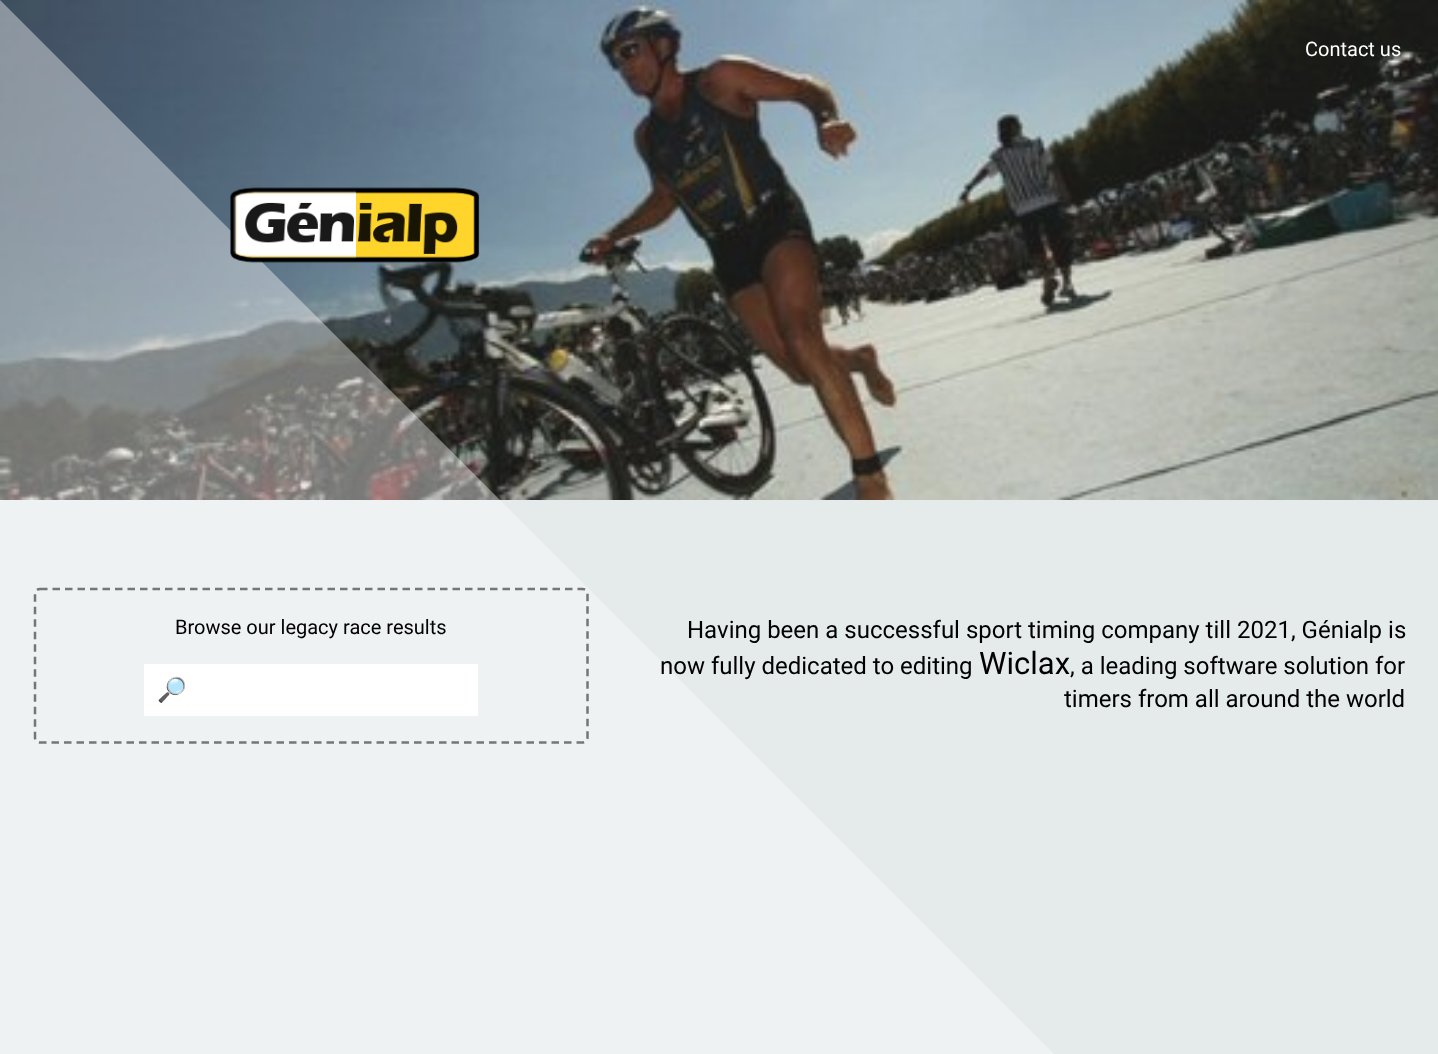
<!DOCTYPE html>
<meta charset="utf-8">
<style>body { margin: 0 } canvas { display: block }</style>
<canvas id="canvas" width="1438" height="1054"></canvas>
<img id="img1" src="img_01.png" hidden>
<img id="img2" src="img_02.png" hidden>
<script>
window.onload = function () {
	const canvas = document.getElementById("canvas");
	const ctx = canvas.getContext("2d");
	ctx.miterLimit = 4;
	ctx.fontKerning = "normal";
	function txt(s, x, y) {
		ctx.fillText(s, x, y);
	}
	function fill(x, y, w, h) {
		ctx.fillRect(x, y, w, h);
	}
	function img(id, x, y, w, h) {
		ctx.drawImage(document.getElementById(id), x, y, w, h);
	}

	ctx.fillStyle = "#E5EAEA";
	fill(0, 0, 1438, 1054);
	img("img1", 0, 0, 1438, 500);
	ctx.fillStyle = "rgba(255, 255, 255, 0.4)";
	ctx.beginPath();
	ctx.moveTo(0, 0);
	ctx.lineTo(1414, 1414);
	ctx.lineTo(668, 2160);
	ctx.lineTo(-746, 746);
	ctx.closePath();
	ctx.fill();
	img("img2", 230, 187, 250, 76);
	ctx.beginPath();
	ctx.moveTo(40, 589);
	ctx.lineTo(582.5, 589);
	ctx.bezierCurveTo(585.5, 589, 587.5, 591, 587.5, 594);
	ctx.lineTo(587.5, 737.5);
	ctx.bezierCurveTo(587.5, 740.5, 585.5, 742.5, 582.5, 742.5);
	ctx.lineTo(40, 742.5);
	ctx.bezierCurveTo(37, 742.5, 35, 740.5, 35, 737.5);
	ctx.lineTo(35, 594);
	ctx.bezierCurveTo(35, 591, 37, 589, 40, 589);
	ctx.closePath();
	ctx.strokeStyle = "#767676";
	ctx.lineWidth = 2.5;
	ctx.setLineDash([7.5, 5]);
	ctx.stroke();
	ctx.fillStyle = "#FFFFFF";
	fill(144, 664, 334, 52);
	ctx.font = "20px Roboto";
	txt("Contact us", 1305, 56);
	ctx.fillStyle = "#000000";
	txt("Browse our legacy race results", 175, 634);
	ctx.font = "24px Noto Color Emoji";
	ctx.fillStyle = "#757575";
	txt("🔎", 157, 698);
	ctx.font = "24px Roboto";
	ctx.fillStyle = "#000000";
	txt("Having been a successful sport timing company till 2021, Génialp is", 687, 638);
	txt("now fully dedicated to editing", 660, 674);
	ctx.font = "31px Roboto";
	txt("Wiclax", 979, 674);
	ctx.font = "24px Roboto";
	txt(", a leading software solution for", 1070, 674);
	txt("timers from all around the world", 1064, 707);
};
</script>
